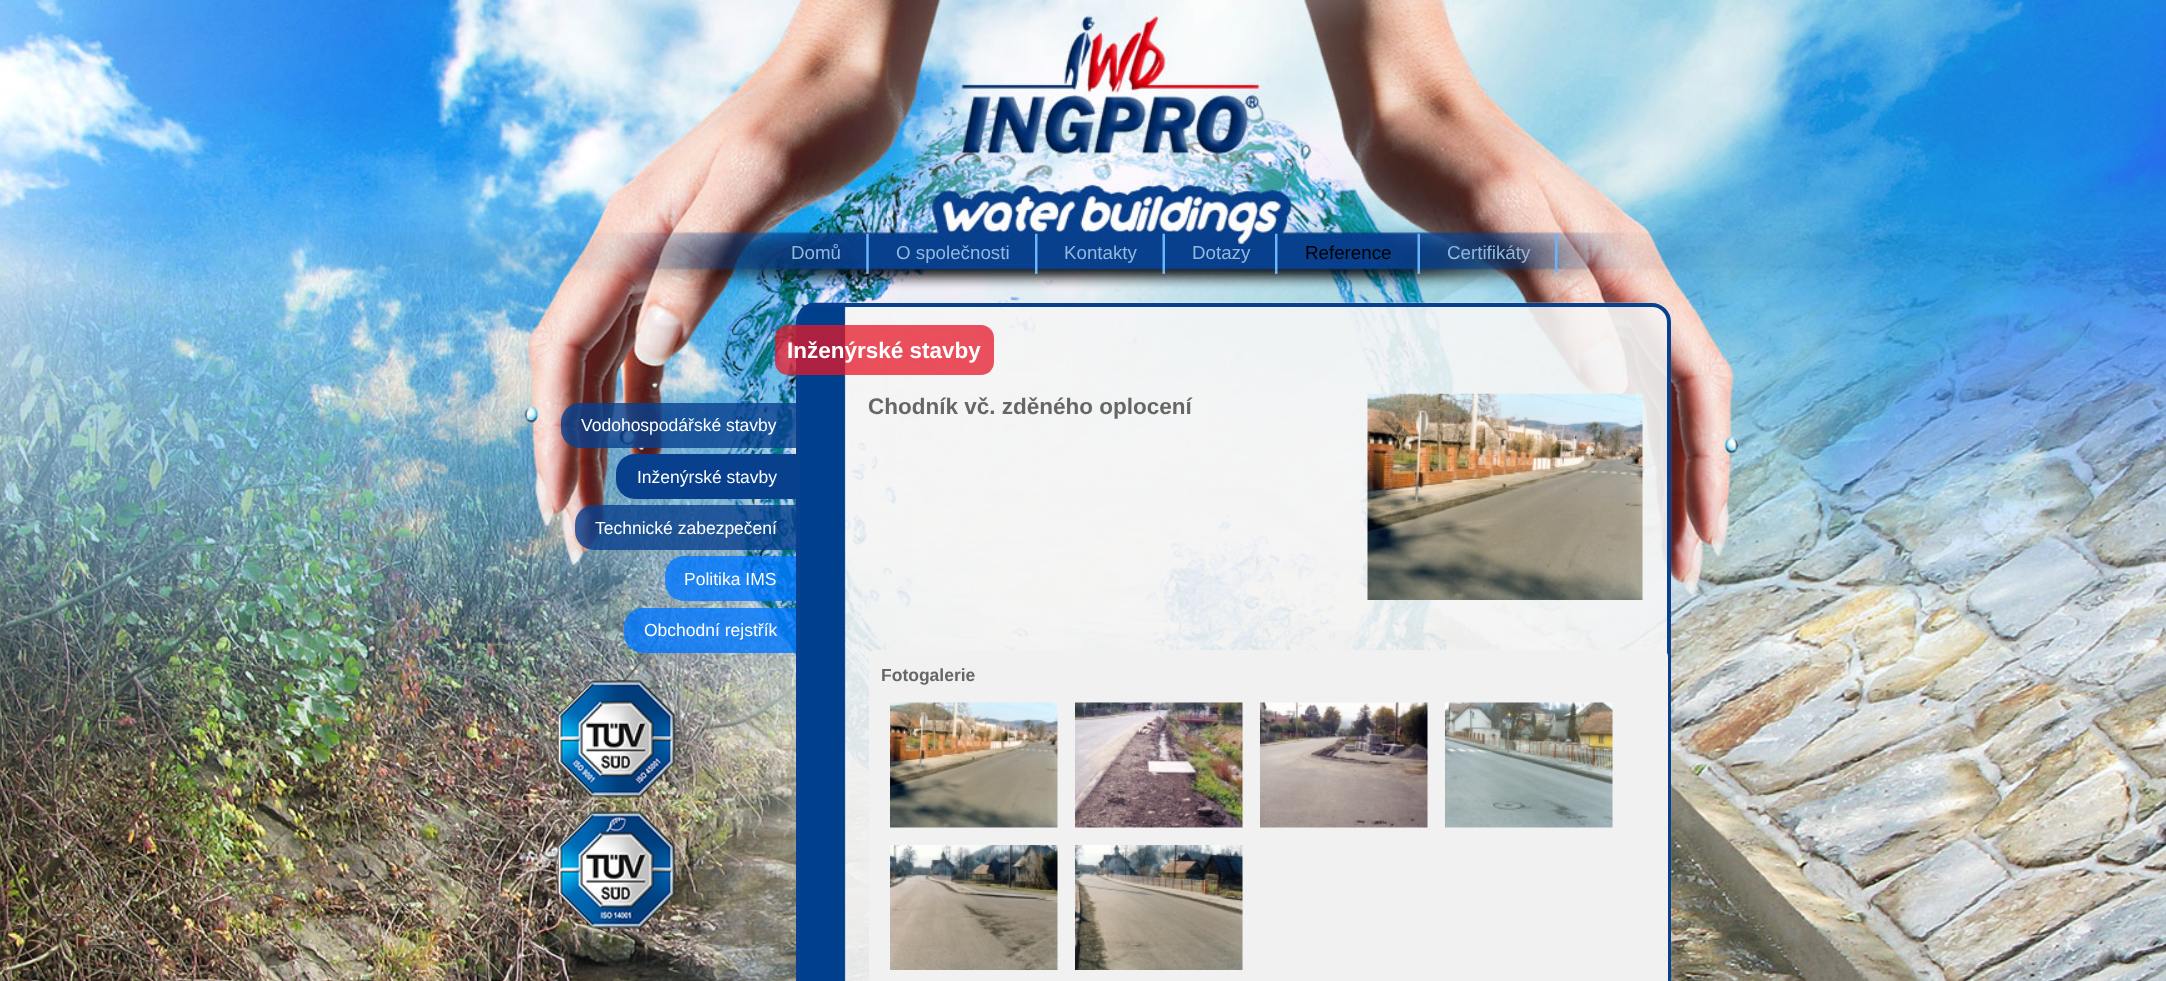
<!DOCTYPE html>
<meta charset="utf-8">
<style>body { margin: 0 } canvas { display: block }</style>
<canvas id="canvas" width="2166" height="981"></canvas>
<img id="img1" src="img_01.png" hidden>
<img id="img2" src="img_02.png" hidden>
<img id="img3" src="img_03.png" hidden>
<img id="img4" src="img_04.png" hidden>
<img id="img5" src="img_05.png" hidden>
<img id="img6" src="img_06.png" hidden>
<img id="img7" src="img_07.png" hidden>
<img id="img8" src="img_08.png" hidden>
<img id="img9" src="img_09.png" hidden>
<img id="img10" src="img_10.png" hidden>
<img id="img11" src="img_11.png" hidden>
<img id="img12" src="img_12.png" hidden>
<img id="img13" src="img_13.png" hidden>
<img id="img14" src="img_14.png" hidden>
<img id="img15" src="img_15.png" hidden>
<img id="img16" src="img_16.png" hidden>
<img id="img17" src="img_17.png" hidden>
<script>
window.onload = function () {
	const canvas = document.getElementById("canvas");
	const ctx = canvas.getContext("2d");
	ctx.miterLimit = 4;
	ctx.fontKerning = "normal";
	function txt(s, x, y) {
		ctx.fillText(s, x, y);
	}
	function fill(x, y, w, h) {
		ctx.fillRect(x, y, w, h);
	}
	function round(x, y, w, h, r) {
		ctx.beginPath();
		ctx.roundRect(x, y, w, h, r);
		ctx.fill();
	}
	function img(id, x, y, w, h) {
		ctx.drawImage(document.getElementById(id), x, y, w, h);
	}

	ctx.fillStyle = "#FFFFFF";
	fill(0, 0, 2166, 981);
	img("img1", 0, 0, 2166, 981);
	img("img2", 866, 233, 3, 41);
	img("img3", 1035, 233, 3, 41);
	img("img4", 1162, 233, 3, 41);
	img("img5", 1275, 233, 3, 41);
	img("img6", 1417, 233, 3, 41);
	img("img7", 1555, 233, 3, 41);
	ctx.fillStyle = "rgba(8, 64, 141, 0.8)";
	ctx.beginPath();
	ctx.roundRect(561, 403, 235, 45, [19, 0, 0, 19]);
	ctx.fill();
	ctx.fillStyle = "#08408D";
	ctx.beginPath();
	ctx.roundRect(616, 454, 180, 45, [19, 0, 0, 19]);
	ctx.fill();
	ctx.fillStyle = "rgba(8, 64, 141, 0.8)";
	ctx.beginPath();
	ctx.roundRect(575, 505, 221, 45, [19, 0, 0, 19]);
	ctx.fill();
	ctx.fillStyle = "rgba(0, 120, 255, 0.8)";
	ctx.beginPath();
	ctx.roundRect(665, 556, 131, 45, [19, 0, 0, 19]);
	ctx.fill();
	ctx.beginPath();
	ctx.roundRect(624, 608, 172, 45, [19, 0, 0, 19]);
	ctx.fill();
	img("img8", 557, 679, 119, 119);
	img("img9", 557, 811, 119, 118);
	img("img10", 800, 302, 872, 679);
	ctx.beginPath();
	ctx.roundRect(798, 305, 871, 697, 17);
	ctx.strokeStyle = "#08408D";
	ctx.lineWidth = 4;
	ctx.stroke();
	ctx.fillStyle = "rgba(230, 23, 40, 0.75)";
	round(775, 325, 219, 50, 13);
	img("img11", 1367, 393, 276, 207);
	ctx.fillStyle = "#F1F1F1";
	round(869, 650, 799, 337, 6);
	img("img12", 890, 702, 168, 126);
	img("img13", 1075, 702, 168, 126);
	img("img14", 1260, 702, 168, 126);
	img("img15", 1445, 702, 168, 126);
	img("img16", 890, 845, 168, 125);
	img("img17", 1075, 845, 168, 125);
	ctx.font = "18.75px Liberation Sans";
	ctx.fillStyle = "#92B8DE";
	txt("Domů", 791, 259);
	txt("O společnosti", 896, 259);
	txt("Kontakty", 1064, 259);
	txt("Dotazy", 1192, 259);
	ctx.fillStyle = "#000000";
	txt("Reference", 1305, 259);
	ctx.fillStyle = "#92B8DE";
	txt("Certifikáty", 1447, 259);
	ctx.font = "17.5px Liberation Sans";
	ctx.fillStyle = "#FFFFFF";
	txt("Vodohospodářské stavby", 581, 431);
	txt("Inženýrské stavby", 637, 483);
	txt("Technické zabezpečení", 595, 534);
	txt("Politika IMS", 684, 585);
	txt("Obchodní rejstřík", 644, 636);
	ctx.font = "bold 22.5px Liberation Sans";
	txt("Inženýrské stavby", 787, 358);
	ctx.fillStyle = "#666666";
	txt("Chodník vč. zděného oplocení", 868, 414);
	ctx.font = "bold 17.5px Liberation Sans";
	txt("Fotogalerie", 881, 681);
};
</script>
